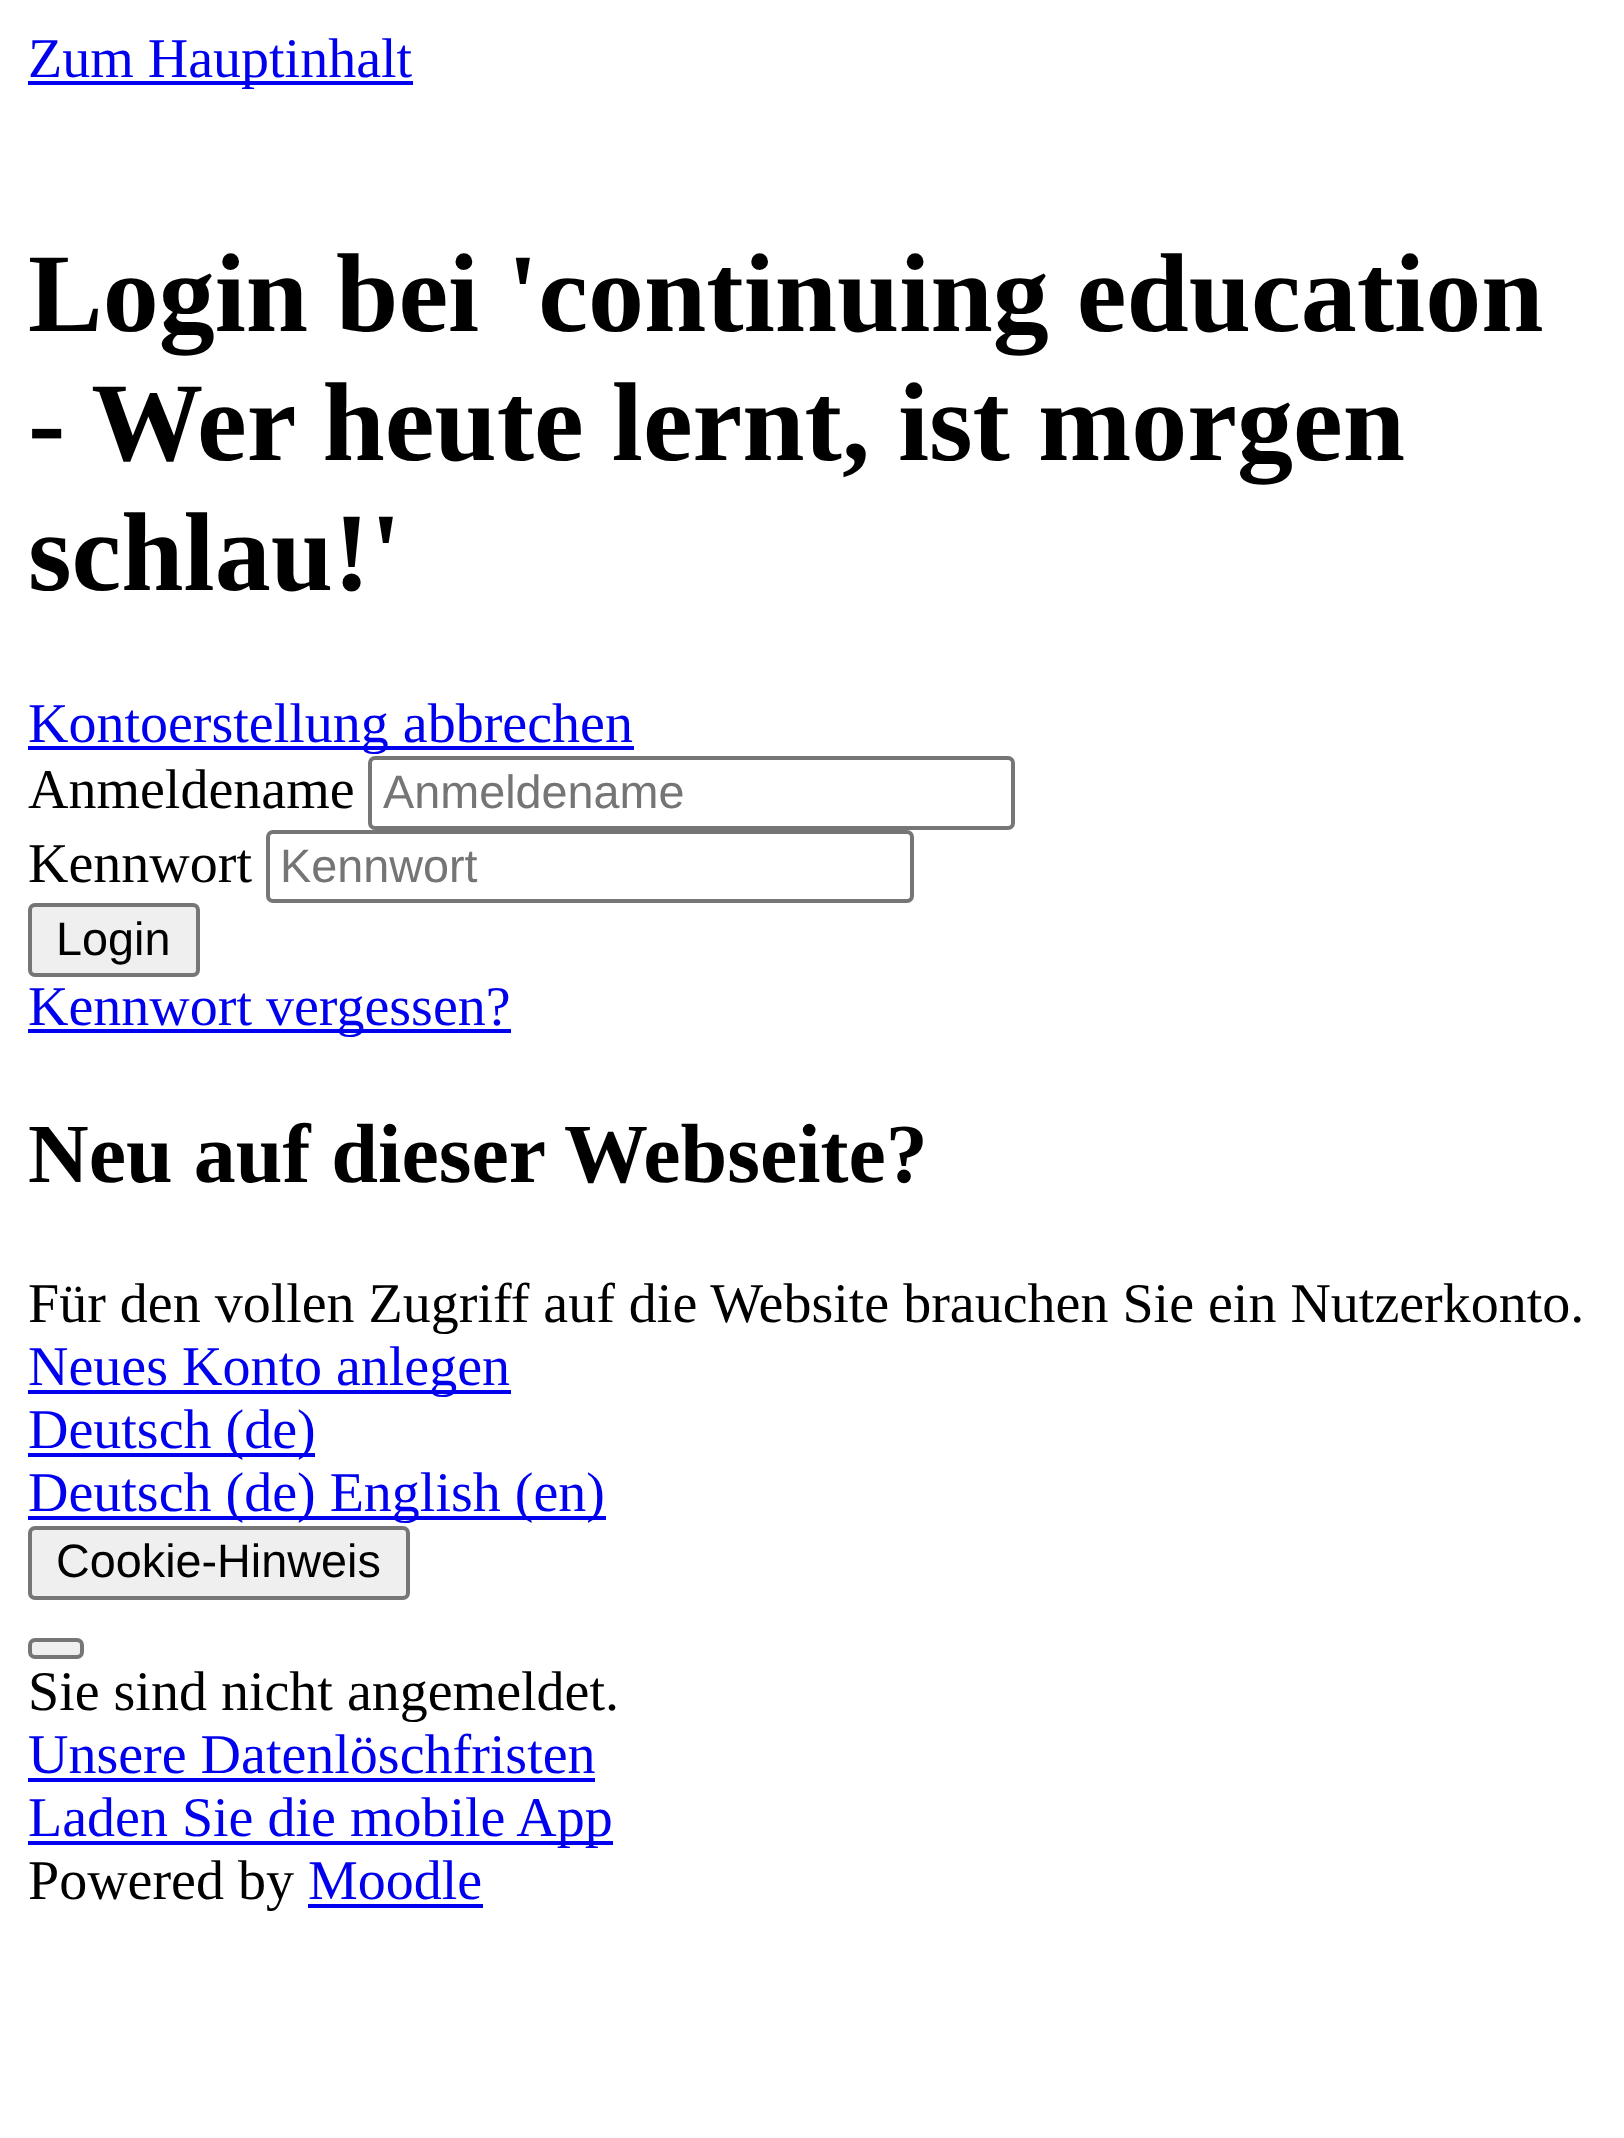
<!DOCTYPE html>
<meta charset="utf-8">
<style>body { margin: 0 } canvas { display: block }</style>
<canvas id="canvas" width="1624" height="2138"></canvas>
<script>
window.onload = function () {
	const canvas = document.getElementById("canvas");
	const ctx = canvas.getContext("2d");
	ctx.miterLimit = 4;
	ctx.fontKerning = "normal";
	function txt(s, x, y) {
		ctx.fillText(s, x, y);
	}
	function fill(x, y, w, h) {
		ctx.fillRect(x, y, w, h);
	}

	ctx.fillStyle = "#FFFFFF";
	fill(0, 0, 1624, 2138);
	ctx.fillStyle = "#0000EE";
	fill(28, 81, 385, 4);
	fill(28, 746, 606, 4);
	ctx.beginPath();
	ctx.roundRect(370, 758, 643, 70, 5);
	ctx.strokeStyle = "#767676";
	ctx.lineWidth = 4;
	ctx.stroke();
	ctx.beginPath();
	ctx.roundRect(268, 832, 644, 69, 5);
	ctx.stroke();
	ctx.fillStyle = "#EFEFEF";
	ctx.beginPath();
	ctx.roundRect(30, 905, 168, 70, 5);
	ctx.fill();
	ctx.stroke();
	ctx.fillStyle = "#0000EE";
	fill(28, 1029, 483, 4);
	fill(28, 1390, 483, 4);
	fill(28, 1453, 287, 4);
	fill(28, 1516, 578, 4);
	ctx.fillStyle = "#EFEFEF";
	ctx.beginPath();
	ctx.roundRect(30, 1528, 378, 70, 5);
	ctx.fill();
	ctx.stroke();
	ctx.beginPath();
	ctx.roundRect(30, 1640, 52, 17, 5);
	ctx.fill();
	ctx.stroke();
	ctx.fillStyle = "#0000EE";
	fill(28, 1778, 567, 4);
	fill(28, 1841, 585, 4);
	fill(308, 1904, 175, 4);
	ctx.font = "56px Liberation Serif";
	txt("Zum Hauptinhalt", 28, 77);
	ctx.font = "bold 112px Liberation Serif";
	ctx.fillStyle = "#000000";
	txt("Login bei 'continuing education", 28, 331);
	txt("- Wer heute lernt, ist morgen", 28, 460);
	txt("schlau!'", 28, 590);
	ctx.font = "56px Liberation Serif";
	ctx.fillStyle = "#0000EE";
	txt("Kontoerstellung abbrechen", 28, 742);
	ctx.fillStyle = "#000000";
	txt("Anmeldename", 28, 808);
	ctx.font = "46.75px Liberation Sans";
	ctx.fillStyle = "#757575";
	txt("Anmeldename", 383, 808);
	ctx.font = "56px Liberation Serif";
	ctx.fillStyle = "#000000";
	txt("Kennwort", 28, 882);
	ctx.font = "46.75px Liberation Sans";
	ctx.fillStyle = "#757575";
	txt("Kennwort", 280, 882);
	ctx.fillStyle = "#000000";
	txt("Login", 56, 955);
	ctx.font = "56px Liberation Serif";
	ctx.fillStyle = "#0000EE";
	txt("Kennwort vergessen?", 28, 1025);
	ctx.font = "bold 84px Liberation Serif";
	ctx.fillStyle = "#000000";
	txt("Neu auf dieser Webseite?", 28, 1182);
	ctx.font = "56px Liberation Serif";
	txt("Für den vollen Zugriff auf die Website brauchen Sie ein Nutzerkonto.", 28, 1322);
	ctx.fillStyle = "#0000EE";
	txt("Neues Konto anlegen", 28, 1385);
	txt("Deutsch (de)", 28, 1448);
	txt("Deutsch (de) English (en)", 28, 1511);
	ctx.font = "46.75px Liberation Sans";
	ctx.fillStyle = "#000000";
	txt("Cookie-Hinweis", 56, 1577);
	ctx.font = "56px Liberation Serif";
	txt("Sie sind nicht angemeldet.", 28, 1710);
	ctx.fillStyle = "#0000EE";
	txt("Unsere Datenlöschfristen", 28, 1773);
	txt("Laden Sie die mobile App", 28, 1836);
	ctx.fillStyle = "#000000";
	txt("Powered by", 28, 1899);
	ctx.fillStyle = "#0000EE";
	txt("Moodle", 308, 1899);
};
</script>
